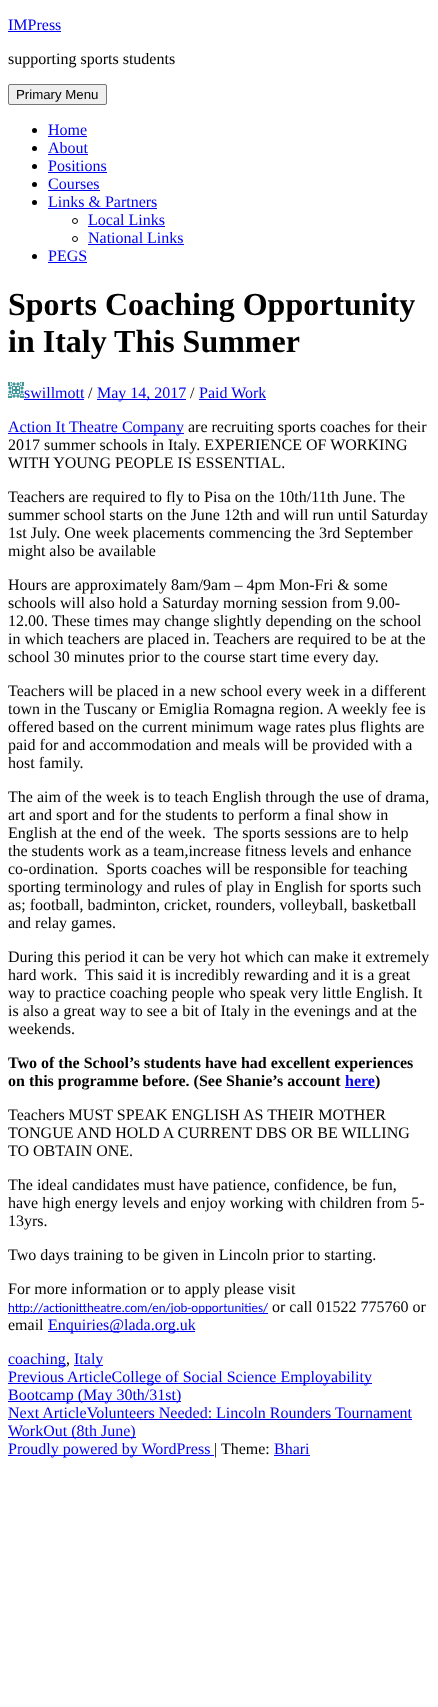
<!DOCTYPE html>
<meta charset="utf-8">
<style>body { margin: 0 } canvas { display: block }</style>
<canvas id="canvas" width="438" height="1707"></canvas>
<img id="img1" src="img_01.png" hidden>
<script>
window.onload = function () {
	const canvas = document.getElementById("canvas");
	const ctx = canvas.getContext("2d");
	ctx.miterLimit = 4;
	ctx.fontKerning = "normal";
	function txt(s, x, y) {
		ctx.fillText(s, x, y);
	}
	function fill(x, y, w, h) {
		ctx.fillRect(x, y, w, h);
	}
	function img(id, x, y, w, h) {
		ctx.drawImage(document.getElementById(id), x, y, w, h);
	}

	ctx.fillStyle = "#FFFFFF";
	fill(0, 0, 438, 1707);
	ctx.fillStyle = "#0000EE";
	fill(8, 31, 53, 1);
	ctx.fillStyle = "#EFEFEF";
	ctx.beginPath();
	ctx.roundRect(8.5, 84.5, 98, 20, 1.5);
	ctx.fill();
	ctx.strokeStyle = "#767676";
	ctx.stroke();
	ctx.fillStyle = "#000000";
	ctx.beginPath();
	ctx.arc(34.5, 130.5, 2.5, 0, Math.PI * 2);
	ctx.fill();
	ctx.fillStyle = "#0000EE";
	fill(48, 136, 39, 1);
	ctx.fillStyle = "#000000";
	ctx.beginPath();
	ctx.arc(34.5, 148.5, 2.5, 0, Math.PI * 2);
	ctx.fill();
	ctx.fillStyle = "#0000EE";
	fill(48, 154, 40, 1);
	ctx.fillStyle = "#000000";
	ctx.beginPath();
	ctx.arc(34.5, 166.5, 2.5, 0, Math.PI * 2);
	ctx.fill();
	ctx.fillStyle = "#0000EE";
	fill(48, 172, 59, 1);
	ctx.fillStyle = "#000000";
	ctx.beginPath();
	ctx.arc(34.5, 184.5, 2.5, 0, Math.PI * 2);
	ctx.fill();
	ctx.fillStyle = "#0000EE";
	fill(48, 190, 52, 1);
	ctx.fillStyle = "#000000";
	ctx.beginPath();
	ctx.arc(34.5, 202.5, 2.5, 0, Math.PI * 2);
	ctx.fill();
	ctx.fillStyle = "#0000EE";
	fill(48, 208, 109, 1);
	ctx.beginPath();
	ctx.arc(75, 221, 2.5, 0, Math.PI * 2);
	ctx.strokeStyle = "#000000";
	ctx.stroke();
	fill(88, 226, 77, 1);
	ctx.beginPath();
	ctx.arc(75, 239, 2.5, 0, Math.PI * 2);
	ctx.stroke();
	fill(88, 244, 96, 1);
	ctx.fillStyle = "#000000";
	ctx.beginPath();
	ctx.arc(34.5, 256.5, 2.5, 0, Math.PI * 2);
	ctx.fill();
	ctx.fillStyle = "#0000EE";
	fill(48, 262, 39, 1);
	img("img1", 8, 382, 16, 16);
	fill(24, 399, 60, 1);
	fill(97, 399, 89, 1);
	fill(199, 399, 67, 1);
	fill(8, 433, 176, 1);
	fill(345, 1087, 30, 1);
	fill(8, 1313, 260, 1);
	fill(48, 1331, 147, 1);
	fill(8, 1365, 58, 1);
	fill(74, 1365, 29, 1);
	fill(8, 1383, 364, 1);
	fill(8, 1401, 173, 1);
	fill(8, 1419, 404, 1);
	fill(8, 1437, 128, 1);
	fill(8, 1455, 206, 1);
	fill(274, 1455, 36, 1);
	ctx.font = "16px Liberation Serif";
	txt("IMPress", 8, 30);
	ctx.fillStyle = "#000000";
	txt("supporting sports students", 8, 64);
	ctx.font = "13.25px Liberation Sans";
	txt("Primary Menu", 16, 99);
	ctx.font = "16px Liberation Serif";
	ctx.fillStyle = "#0000EE";
	txt("Home", 48, 135);
	txt("About", 48, 153);
	txt("Positions", 48, 171);
	txt("Courses", 48, 189);
	txt("Links & Partners", 48, 207);
	txt("Local Links", 88, 225);
	txt("National Links", 88, 243);
	txt("PEGS", 48, 261);
	ctx.font = "bold 32px Liberation Serif";
	ctx.fillStyle = "#000000";
	txt("Sports Coaching Opportunity", 8, 315);
	txt("in Italy This Summer", 8, 352);
	ctx.font = "16px Liberation Serif";
	ctx.fillStyle = "#0000EE";
	txt("swillmott", 24, 398);
	ctx.fillStyle = "#000000";
	txt("/", 88, 398);
	ctx.fillStyle = "#0000EE";
	txt("May 14, 2017", 97, 398);
	ctx.fillStyle = "#000000";
	txt("/", 190, 398);
	ctx.fillStyle = "#0000EE";
	txt("Paid Work", 199, 398);
	txt("Action It Theatre Company", 8, 432);
	ctx.fillStyle = "#000000";
	txt("are recruiting sports coaches for their", 188, 432);
	txt("2017 summer schools in Italy. EXPERIENCE OF WORKING", 8, 450);
	txt("WITH YOUNG PEOPLE IS ESSENTIAL.", 8, 468);
	txt("Teachers are required to fly to Pisa on the 10th/11th June. The", 8, 502);
	txt("summer school starts on the June 12th and will run until Saturday", 8, 520);
	txt("1st July. One week placements commencing the 3rd September", 8, 538);
	txt("might also be available", 8, 556);
	txt("Hours are approximately 8am/9am – 4pm Mon-Fri & some", 8, 590);
	txt("schools will also hold a Saturday morning session from 9.00-", 8, 608);
	txt("12.00. These times may change slightly depending on the school", 8, 626);
	txt("in which teachers are placed in. Teachers are required to be at the", 8, 644);
	txt("school 30 minutes prior to the course start time every day.", 8, 662);
	txt("Teachers will be placed in a new school every week in a different", 8, 696);
	txt("town in the Tuscany or Emiglia Romagna region. A weekly fee is", 8, 714);
	txt("offered based on the current minimum wage rates plus flights are", 8, 732);
	txt("paid for and accommodation and meals will be provided with a", 8, 750);
	txt("host family.", 8, 768);
	txt("The aim of the week is to teach English through the use of drama,", 8, 802);
	txt("art and sport and for the students to perform a final show in", 8, 820);
	txt("English at the end of the week.  The sports sessions are to help", 8, 838);
	txt("the students work as a team,increase fitness levels and enhance", 8, 856);
	txt("co-ordination.  Sports coaches will be responsible for teaching", 8, 874);
	txt("sporting terminology and rules of play in English for sports such", 8, 892);
	txt("as; football, badminton, cricket, rounders, volleyball, basketball", 8, 910);
	txt("and relay games.", 8, 928);
	txt("During this period it can be very hot which can make it extremely", 8, 962);
	txt("hard work.  This said it is incredibly rewarding and it is a great", 8, 980);
	txt("way to practice coaching people who speak very little English. It", 8, 998);
	txt("is also a great way to see a bit of Italy in the evenings and at the", 8, 1016);
	txt("weekends.", 8, 1034);
	ctx.font = "bold 16px Liberation Serif";
	txt("Two of the School’s students have had excellent experiences", 8, 1068);
	txt("on this programme before. (See Shanie’s account", 8, 1086);
	ctx.fillStyle = "#0000EE";
	txt("here", 345, 1086);
	ctx.fillStyle = "#000000";
	txt(")", 375, 1086);
	ctx.font = "16px Liberation Serif";
	txt("Teachers MUST SPEAK ENGLISH AS THEIR MOTHER", 8, 1120);
	txt("TONGUE AND HOLD A CURRENT DBS OR BE WILLING", 8, 1138);
	txt("TO OBTAIN ONE.", 8, 1156);
	txt("The ideal candidates must have patience, confidence, be fun,", 8, 1190);
	txt("have high energy levels and enjoy working with children from 5-", 8, 1208);
	txt("13yrs.", 8, 1226);
	txt("Two days training to be given in Lincoln prior to starting.", 8, 1260);
	txt("For more information or to apply please visit", 8, 1294);
	ctx.font = "13px Carlito";
	ctx.fillStyle = "#0000EE";
	txt("http://actionittheatre.com/en/job-opportunities/", 8, 1312);
	ctx.font = "16px Liberation Serif";
	ctx.fillStyle = "#000000";
	txt("or call 01522 775760 or", 272, 1312);
	txt("email", 8, 1330);
	ctx.fillStyle = "#0000EE";
	txt("Enquiries@lada.org.uk", 48, 1330);
	txt("coaching", 8, 1364);
	ctx.fillStyle = "#000000";
	txt(",", 66, 1364);
	ctx.fillStyle = "#0000EE";
	txt("Italy", 74, 1364);
	txt("Previous ArticleCollege of Social Science Employability", 8, 1382);
	txt("Bootcamp (May 30th/31st)", 8, 1400);
	txt("Next ArticleVolunteers Needed: Lincoln Rounders Tournament", 8, 1418);
	txt("WorkOut (8th June)", 8, 1436);
	txt("Proudly powered by WordPress", 8, 1454);
	ctx.fillStyle = "#000000";
	txt("| Theme:", 214, 1454);
	ctx.fillStyle = "#0000EE";
	txt("Bhari", 274, 1454);
};
</script>
